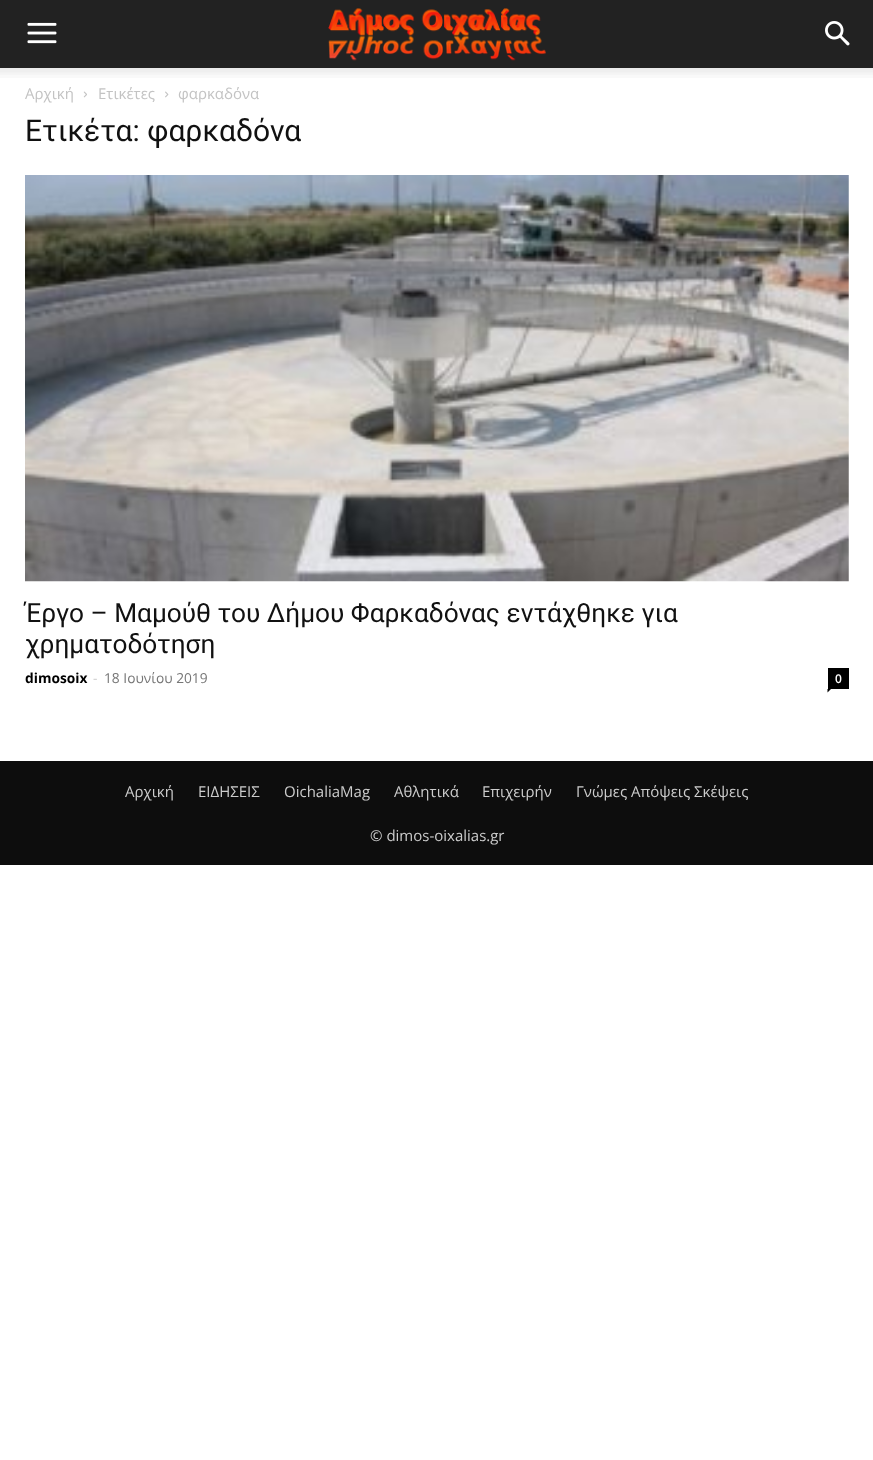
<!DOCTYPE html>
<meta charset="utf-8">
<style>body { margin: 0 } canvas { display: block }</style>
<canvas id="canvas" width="873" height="1460"></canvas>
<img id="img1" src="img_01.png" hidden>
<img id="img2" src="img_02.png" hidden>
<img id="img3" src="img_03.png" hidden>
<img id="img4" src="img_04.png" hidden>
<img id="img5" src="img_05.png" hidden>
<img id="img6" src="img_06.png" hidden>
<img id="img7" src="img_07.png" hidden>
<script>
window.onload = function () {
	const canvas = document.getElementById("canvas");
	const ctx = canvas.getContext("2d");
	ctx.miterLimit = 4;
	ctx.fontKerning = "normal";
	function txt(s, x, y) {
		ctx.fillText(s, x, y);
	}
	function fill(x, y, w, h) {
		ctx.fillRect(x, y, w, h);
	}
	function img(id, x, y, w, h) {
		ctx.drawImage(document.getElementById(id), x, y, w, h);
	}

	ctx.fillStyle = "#FFFFFF";
	fill(0, 0, 873, 1460);
	ctx.fillStyle = "#222222";
	fill(0, 0, 873, 68);
	img("img1", 27, 22, 30, 22);
	img("img2", 328, 8, 218, 53);
	img("img3", 825, 21, 25, 25);
	img("img4", 0, 68, 873, 10);
	img("img5", 83, 91, 4, 7);
	img("img6", 165, 91, 4, 7);
	img("img7", 25, 175, 824, 407);
	ctx.fillStyle = "#000000";
	fill(828, 668, 21, 21);
	ctx.beginPath();
	ctx.moveTo(827.5, 689);
	ctx.lineTo(831, 689);
	ctx.lineTo(827.5, 692.5);
	ctx.closePath();
	ctx.fill();
	ctx.fillStyle = "#0D0D0D";
	fill(0, 761, 873, 104);
	ctx.font = "15px Open Sans";
	ctx.fillStyle = "#C3C3C3";
	txt("Αρχική", 25, 99);
	txt("Ετικέτες", 98, 99);
	txt("φαρκαδόνα", 178, 99);
	ctx.font = "30px Roboto";
	ctx.fillStyle = "#111111";
	txt("Ετικέτα: φαρκαδόνα", 25, 141);
	ctx.font = "26.25px Roboto";
	txt("Έργο – Μαμούθ του Δήμου Φαρκαδόνας εντάχθηκε για", 25, 622);
	txt("χρηματοδότηση", 25, 653);
	ctx.font = "bold 13.75px Open Sans";
	ctx.fillStyle = "#000000";
	txt("dimosoix", 25, 683);
	ctx.font = "13.75px Open Sans";
	ctx.fillStyle = "#CCCCCC";
	txt("-", 93, 683);
	ctx.fillStyle = "#767676";
	txt("18 Ιουνίου 2019", 104, 683);
	ctx.font = "600 12px Open Sans";
	ctx.fillStyle = "#FFFFFF";
	txt("0", 835, 683);
	ctx.font = "15px Open Sans";
	ctx.fillStyle = "#CCCCCC";
	txt("Αρχική", 125, 797);
	txt("ΕΙΔΗΣΕΙΣ", 198, 797);
	txt("OichaliaMag", 284, 797);
	txt("Αθλητικά", 394, 797);
	txt("Eπιχειρήν", 482, 797);
	txt("Γνώμες Απόψεις Σκέψεις", 576, 797);
	txt("© dimos-oixalias.gr", 370, 841);
};
</script>
